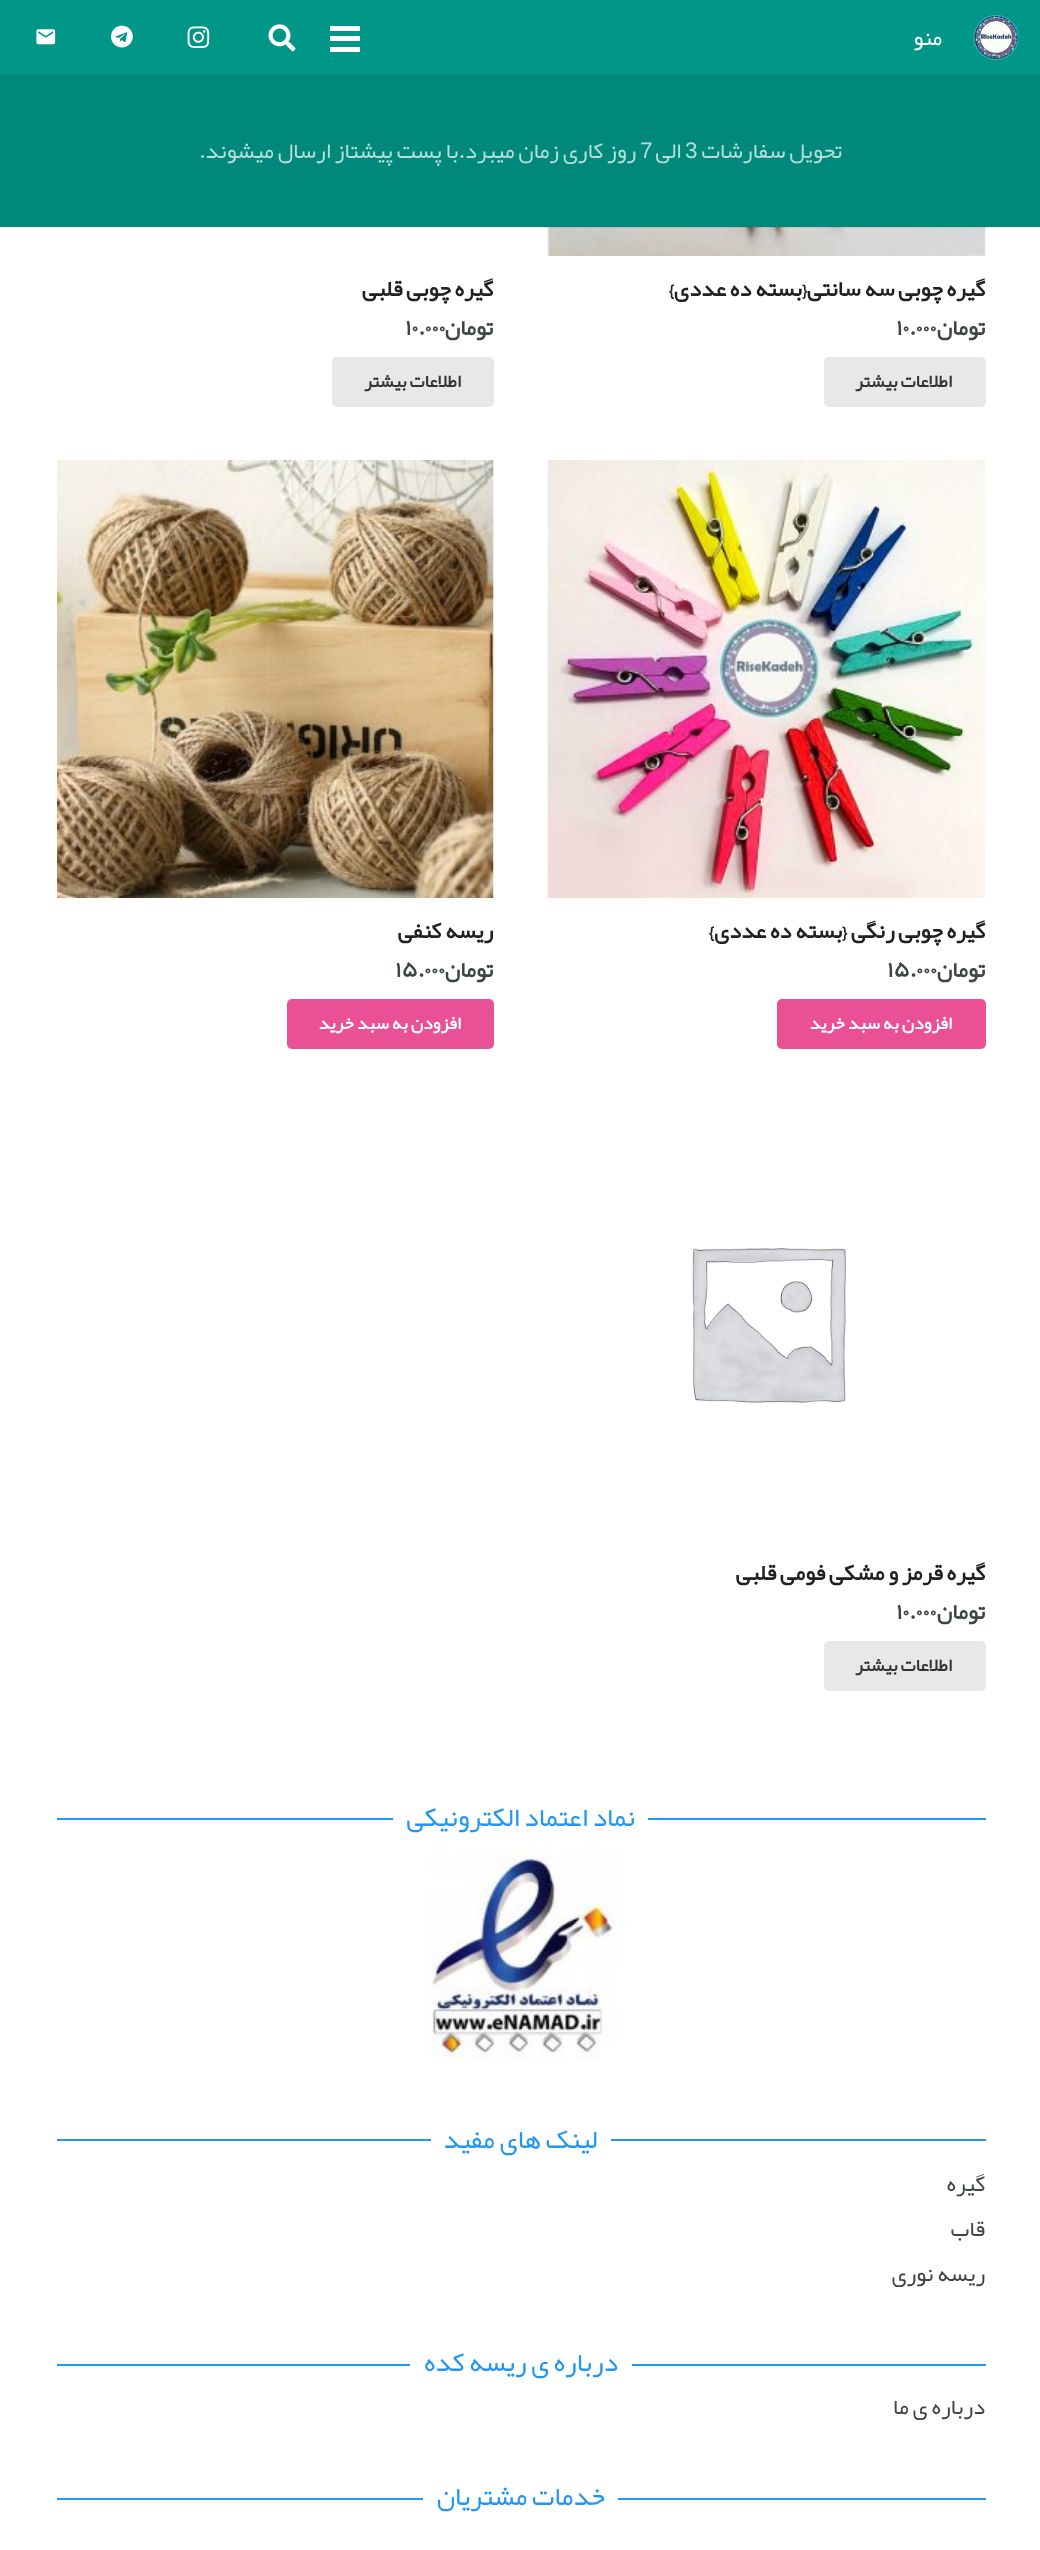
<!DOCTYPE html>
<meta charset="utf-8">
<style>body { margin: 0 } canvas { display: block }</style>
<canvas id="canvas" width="1040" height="2550"></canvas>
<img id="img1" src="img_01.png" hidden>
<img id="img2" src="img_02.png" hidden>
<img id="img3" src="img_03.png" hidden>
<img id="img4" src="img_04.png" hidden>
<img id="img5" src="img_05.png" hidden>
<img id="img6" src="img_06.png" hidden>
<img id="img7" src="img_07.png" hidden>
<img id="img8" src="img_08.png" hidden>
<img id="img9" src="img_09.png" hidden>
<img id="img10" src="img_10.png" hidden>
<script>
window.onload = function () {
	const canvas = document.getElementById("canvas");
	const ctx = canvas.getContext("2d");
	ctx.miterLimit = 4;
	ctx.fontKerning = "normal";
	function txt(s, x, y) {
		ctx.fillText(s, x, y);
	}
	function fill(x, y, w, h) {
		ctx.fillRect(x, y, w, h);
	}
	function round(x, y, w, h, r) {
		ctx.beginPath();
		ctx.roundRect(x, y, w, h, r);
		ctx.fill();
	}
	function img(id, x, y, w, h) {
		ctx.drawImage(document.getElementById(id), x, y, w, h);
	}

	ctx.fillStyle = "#FFFFFF";
	fill(0, 0, 1040, 2550);
	ctx.fillStyle = "#009688";
	fill(0, 0, 1040, 75);
	img("img1", 973, 15, 46, 45);
	ctx.fillStyle = "#FFFFFF";
	fill(330, 36, 30, 5);
	fill(330, 26, 30, 5);
	fill(330, 47, 30, 5);
	img("img2", 268, 24, 28, 28);
	img("img3", 187, 26, 23, 23);
	img("img4", 111, 25, 22, 23);
	img("img5", 36, 29, 20, 16);
	img("img6", 547, 227, 439, 29);
	ctx.fillStyle = "rgba(0, 0, 0, 0.08)";
	fill(0, 227, 1040, 1);
	ctx.fillStyle = "#00897B";
	fill(0, 75, 1040, 152);
	ctx.fillStyle = "#E8E8E8";
	round(824, 357, 162, 50, 5);
	round(332, 357, 162, 50, 5);
	img("img7", 547, 460, 439, 438);
	ctx.fillStyle = "#E95095";
	round(777, 999, 209, 50, 5);
	img("img8", 57, 460, 437, 438);
	round(287, 999, 207, 50, 5);
	img("img9", 692, 1248, 154, 155);
	ctx.fillStyle = "#E8E8E8";
	round(824, 1641, 162, 50, 5);
	ctx.fillStyle = "#2196F3";
	fill(648, 1818, 338, 2);
	fill(57, 1818, 336, 2);
	img("img10", 431, 1843, 194, 217);
	fill(611, 2139, 375, 2);
	fill(57, 2139, 374, 2);
	fill(632, 2364, 354, 2);
	fill(57, 2364, 353, 2);
	fill(618, 2498, 368, 2);
	fill(57, 2498, 366, 2);
	ctx.direction = "rtl";
	ctx.font = "22.5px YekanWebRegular";
	ctx.fillStyle = "#FFFFFF";
	txt("منو", 942, 45);
	ctx.fillStyle = "#B2DFDB";
	txt("تحویل سفارشات", 842, 158);
	ctx.direction = "ltr";
	ctx.font = "22.5px Liberation Sans";
	txt("3", 685, 158);
	ctx.direction = "rtl";
	ctx.font = "22.5px YekanWebRegular";
	txt("الی", 681, 158);
	ctx.direction = "ltr";
	ctx.font = "22.5px Liberation Sans";
	txt("7", 640, 158);
	ctx.direction = "rtl";
	ctx.font = "22.5px YekanWebRegular";
	txt("روز کاری زمان میبرد.با پست پیشتاز ارسال میشوند.", 636, 158);
	ctx.font = "bold 22.5px YekanWebRegular";
	ctx.fillStyle = "#212121";
	txt("گیره چوبی سه سانتی{بسته ده عددی}", 985, 296);
	ctx.fillStyle = "#3F4544";
	txt("تومان", 985, 335);
	ctx.direction = "ltr";
	txt("۱۰.۰۰۰", 896, 335);
	ctx.direction = "rtl";
	ctx.font = "bold 18px YekanWebRegular";
	ctx.fillStyle = "#333333";
	txt("اطلاعات بیشتر", 952, 387);
	ctx.font = "bold 22.5px YekanWebRegular";
	ctx.fillStyle = "#212121";
	txt("گیره چوبی قلبی", 493, 296);
	ctx.fillStyle = "#3F4544";
	txt("تومان", 493, 335);
	ctx.direction = "ltr";
	txt("۱۰.۰۰۰", 405, 335);
	ctx.direction = "rtl";
	ctx.font = "bold 18px YekanWebRegular";
	ctx.fillStyle = "#333333";
	txt("اطلاعات بیشتر", 461, 387);
	ctx.font = "bold 22.5px YekanWebRegular";
	ctx.fillStyle = "#212121";
	txt("گیره چوبی رنگی {بسته ده عددی}", 985, 938);
	ctx.fillStyle = "#3F4544";
	txt("تومان", 985, 977);
	ctx.direction = "ltr";
	txt("۱۵.۰۰۰", 887, 977);
	ctx.direction = "rtl";
	ctx.font = "bold 18px YekanWebRegular";
	ctx.fillStyle = "#FFFFFF";
	txt("افزودن به سبد خرید", 952, 1029);
	ctx.font = "bold 22.5px YekanWebRegular";
	ctx.fillStyle = "#212121";
	txt("ریسه کنفی", 493, 938);
	ctx.fillStyle = "#3F4544";
	txt("تومان", 493, 977);
	ctx.direction = "ltr";
	txt("۱۵.۰۰۰", 395, 977);
	ctx.direction = "rtl";
	ctx.font = "bold 18px YekanWebRegular";
	ctx.fillStyle = "#FFFFFF";
	txt("افزودن به سبد خرید", 461, 1029);
	ctx.font = "bold 22.5px YekanWebRegular";
	ctx.fillStyle = "#212121";
	txt("گیره قرمز و مشکی فومی قلبی", 985, 1580);
	ctx.fillStyle = "#3F4544";
	txt("تومان", 985, 1619);
	ctx.direction = "ltr";
	txt("۱۰.۰۰۰", 896, 1619);
	ctx.direction = "rtl";
	ctx.font = "bold 18px YekanWebRegular";
	ctx.fillStyle = "#333333";
	txt("اطلاعات بیشتر", 952, 1671);
	ctx.font = "27px YekanWebRegular";
	ctx.fillStyle = "#2196F3";
	txt("نماد اعتماد الکترونیکی", 635, 1826);
	txt("لینک های مفید", 597, 2148);
	ctx.font = "22.5px YekanWebRegular";
	ctx.fillStyle = "#3F4544";
	txt("گیره", 985, 2191);
	txt("قاب", 985, 2236);
	txt("ریسه نوری", 985, 2281);
	ctx.font = "27px YekanWebRegular";
	ctx.fillStyle = "#2196F3";
	txt("درباره ی ریسه کده", 618, 2371);
	ctx.font = "22.5px YekanWebRegular";
	ctx.fillStyle = "#3F4544";
	txt("درباره ی ما", 985, 2414);
	ctx.font = "27px YekanWebRegular";
	ctx.fillStyle = "#2196F3";
	txt("خدمات مشتریان", 605, 2505);
};
</script>
